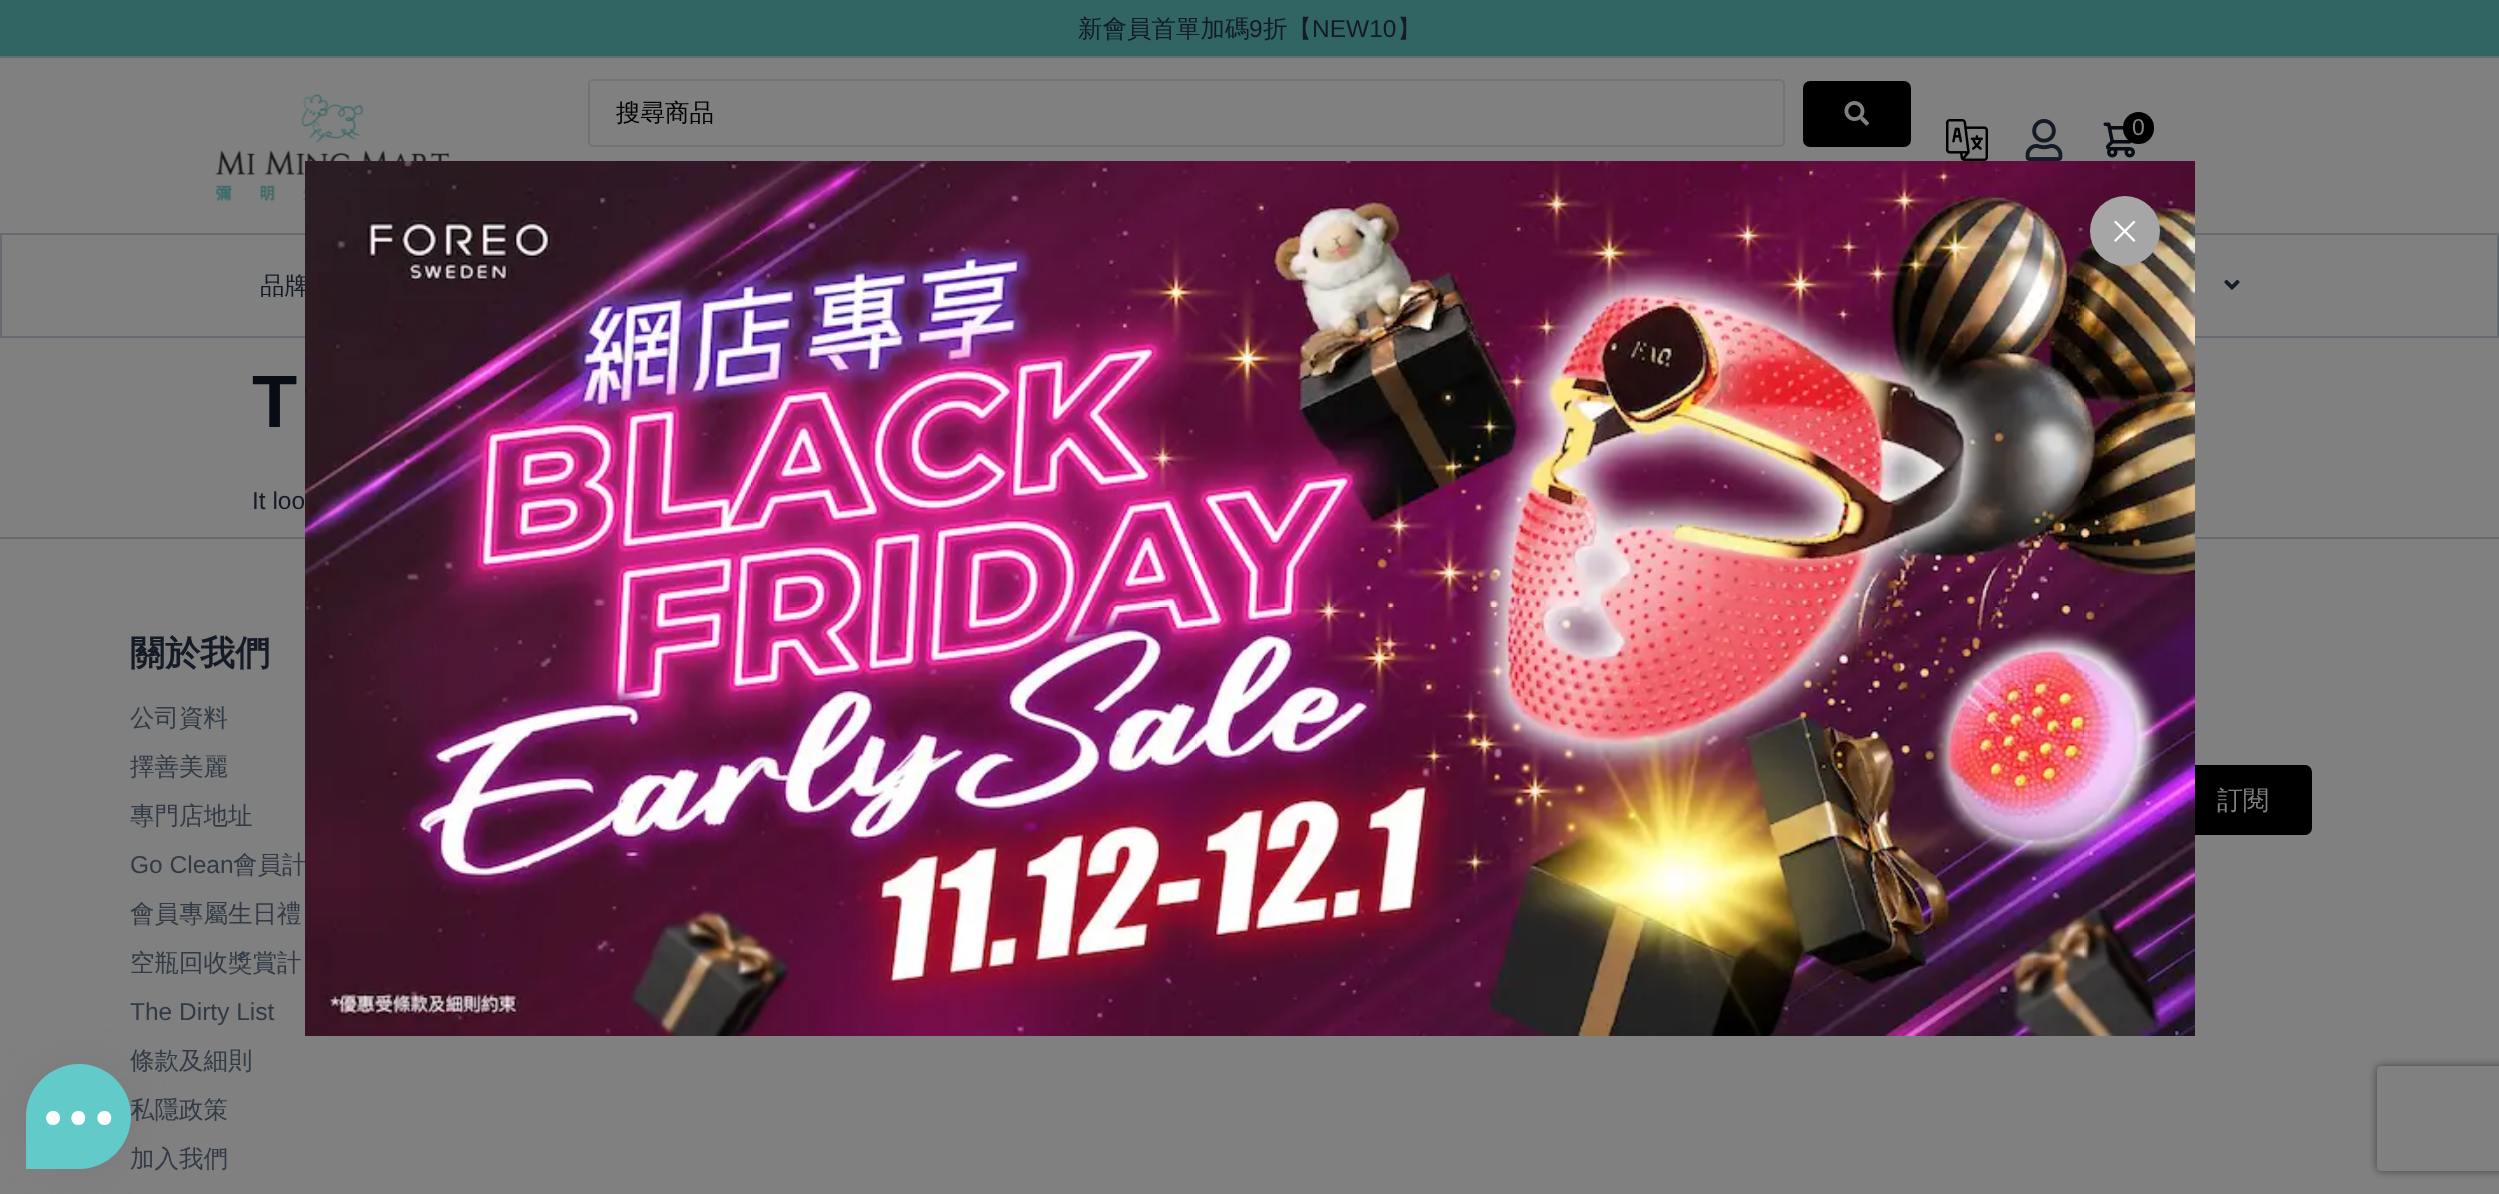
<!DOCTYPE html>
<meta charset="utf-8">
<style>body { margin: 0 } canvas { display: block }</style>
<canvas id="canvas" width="2499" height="1194"></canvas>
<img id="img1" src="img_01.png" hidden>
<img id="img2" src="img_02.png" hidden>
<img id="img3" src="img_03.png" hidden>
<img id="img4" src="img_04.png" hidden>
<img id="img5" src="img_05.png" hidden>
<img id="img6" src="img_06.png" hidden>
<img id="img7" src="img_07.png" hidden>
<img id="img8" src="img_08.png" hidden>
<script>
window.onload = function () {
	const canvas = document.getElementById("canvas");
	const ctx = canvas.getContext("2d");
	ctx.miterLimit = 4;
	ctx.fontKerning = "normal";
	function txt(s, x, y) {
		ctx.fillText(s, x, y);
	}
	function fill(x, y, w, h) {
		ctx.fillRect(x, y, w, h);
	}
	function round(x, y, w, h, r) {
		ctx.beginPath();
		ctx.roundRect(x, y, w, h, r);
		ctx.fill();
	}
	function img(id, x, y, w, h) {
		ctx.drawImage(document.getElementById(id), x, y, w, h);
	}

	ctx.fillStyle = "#808080";
	fill(0, 0, 2499, 1194);
	ctx.fillStyle = "#306564";
	fill(0, 0, 2499, 56);
	ctx.fillStyle = "#666A71";
	fill(0, 56, 2499, 2);
	img("img1", 215, 94, 235, 108);
	ctx.beginPath();
	ctx.roundRect(589, 80, 1195, 66, 4);
	ctx.strokeStyle = "#717376";
	ctx.lineWidth = 2;
	ctx.stroke();
	ctx.fillStyle = "#000000";
	round(1803, 81, 108, 66, 7);
	img("img2", 1844, 101, 25, 25);
	img("img3", 1946, 119, 42, 42);
	img("img4", 2025, 119, 38, 42);
	img("img5", 2103, 122, 32, 36);
	round(2123, 112, 31, 32, 15.5);
	ctx.strokeStyle = "#666A71";
	ctx.strokeRect(1, 234, 2497, 103);
	img("img6", 2224, 279, 16, 11);
	ctx.fillStyle = "rgba(119, 119, 119, 0.64)";
	ctx.filter = "blur(17.5px)";
	ctx.beginPath();
	ctx.roundRect(26, 1064, 105, 105, 52.5);
	ctx.fill();
	ctx.filter = "none";
	ctx.fillStyle = "#666A71";
	fill(0, 537, 2499, 2);
	ctx.fillStyle = "#000000";
	round(2175, 765, 137, 70, 7);
	ctx.save();
	ctx.beginPath();
	ctx.moveTo(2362, 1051);
	ctx.lineTo(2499, 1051);
	ctx.lineTo(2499, 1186);
	ctx.lineTo(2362, 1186);
	ctx.closePath();
	ctx.moveTo(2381, 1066);
	ctx.lineTo(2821, 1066);
	ctx.bezierCurveTo(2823, 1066, 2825, 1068, 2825, 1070);
	ctx.lineTo(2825, 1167);
	ctx.bezierCurveTo(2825, 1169, 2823, 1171, 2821, 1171);
	ctx.lineTo(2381, 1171);
	ctx.bezierCurveTo(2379, 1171, 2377, 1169, 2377, 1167);
	ctx.lineTo(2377, 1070);
	ctx.bezierCurveTo(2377, 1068, 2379, 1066, 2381, 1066);
	ctx.closePath();
	ctx.clip("evenodd");
	ctx.fillStyle = "#404040";
	ctx.filter = "blur(4.5px)";
	ctx.beginPath();
	ctx.roundRect(2377, 1066, 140, 105, 4);
	ctx.fill();
	ctx.filter = "none";
	ctx.restore();
	ctx.font = "500 24.5px WenQuanYi Zen Hei";
	ctx.fillStyle = "#141B26";
	txt("新會員首單加碼", 1078, 37);
	ctx.font = "24.5px Liberation Sans";
	txt("9", 1249, 37);
	ctx.font = "500 24.5px WenQuanYi Zen Hei";
	txt("折【", 1263, 37);
	ctx.font = "24.5px Liberation Sans";
	txt("NEW10", 1312, 37);
	ctx.font = "500 24.5px WenQuanYi Zen Hei";
	txt("】", 1397, 37);
	ctx.fillStyle = "#000000";
	txt("搜尋商品", 616, 121);
	ctx.font = "23px Liberation Sans";
	ctx.fillStyle = "#808080";
	txt("0", 2132, 135);
	ctx.font = "500 24.5px WenQuanYi Zen Hei";
	ctx.fillStyle = "#141B26";
	txt("品牌", 260, 294);
	ctx.font = "bold 74px Liberation Sans";
	ctx.fillStyle = "#080D15";
	txt("T", 252, 427);
	ctx.font = "24.5px Liberation Sans";
	ctx.fillStyle = "#141B26";
	txt("It loo", 252, 509);
	ctx.font = "bold 35px WenQuanYi Zen Hei";
	txt("關於我們", 130, 665);
	ctx.font = "500 24.5px WenQuanYi Zen Hei";
	ctx.fillStyle = "#323A46";
	txt("公司資料", 130, 726);
	txt("擇善美麗", 130, 775);
	txt("專門店地址", 130, 824);
	ctx.font = "24.5px Liberation Sans";
	txt("Go Clean", 130, 873);
	ctx.font = "500 24.5px WenQuanYi Zen Hei";
	txt("會員計", 233, 873);
	img("img7", 305, 161, 1890, 875);
	ctx.fillStyle = "#A6A6A6";
	ctx.beginPath();
	ctx.arc(2125, 231, 35, 0, Math.PI * 2);
	ctx.fill();
	img("img8", 2114, 220, 22, 22);
	ctx.fillStyle = "#323A46";
	txt("會員專屬生日禮", 130, 922);
	txt("空瓶回收獎賞計", 130, 971);
	ctx.font = "24.5px Liberation Sans";
	txt("The Dirty List", 130, 1020);
	ctx.font = "500 24.5px WenQuanYi Zen Hei";
	txt("條款及細則", 130, 1069);
	txt("私隱政策", 130, 1118);
	txt("加入我們", 130, 1167);
	ctx.fillStyle = "#62CBC9";
	ctx.beginPath();
	ctx.moveTo(79, 1064);
	ctx.bezierCurveTo(50, 1064, 26, 1088, 26, 1116);
	ctx.lineTo(26, 1169);
	ctx.lineTo(79, 1169);
	ctx.bezierCurveTo(108, 1169, 131, 1145, 131, 1116);
	ctx.bezierCurveTo(131, 1088, 108, 1064, 79, 1064);
	ctx.closePath();
	ctx.fill();
	ctx.fillStyle = "#FFFFFF";
	ctx.beginPath();
	ctx.moveTo(53, 1111);
	ctx.bezierCurveTo(44, 1111, 44, 1125, 53, 1125);
	ctx.bezierCurveTo(62.5, 1125, 62.5, 1111, 53, 1111);
	ctx.closePath();
	ctx.moveTo(78.5, 1111);
	ctx.bezierCurveTo(69, 1111, 69, 1125, 78.5, 1125);
	ctx.bezierCurveTo(87.5, 1125, 87.5, 1111, 78.5, 1111);
	ctx.closePath();
	ctx.fill();
	ctx.beginPath();
	ctx.moveTo(104.5, 1111);
	ctx.bezierCurveTo(95, 1111, 95, 1125, 104.5, 1125);
	ctx.bezierCurveTo(113.5, 1125, 113.5, 1111, 104.5, 1111);
	ctx.closePath();
	ctx.fill();
	ctx.font = "500 26px WenQuanYi Zen Hei";
	ctx.fillStyle = "#808080";
	txt("訂閱", 2217, 809);
};
</script>
